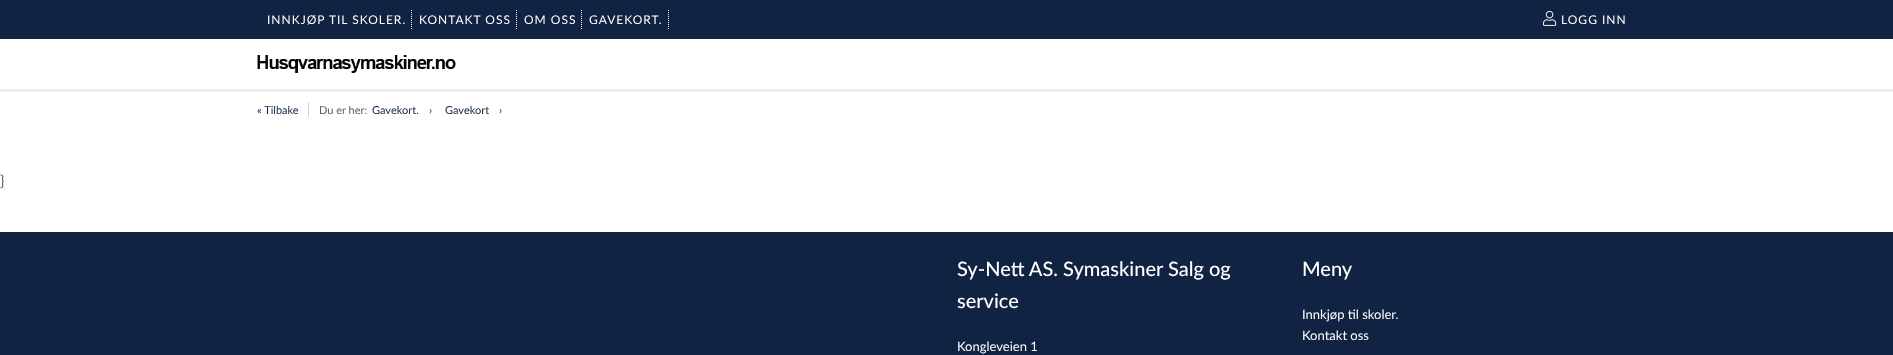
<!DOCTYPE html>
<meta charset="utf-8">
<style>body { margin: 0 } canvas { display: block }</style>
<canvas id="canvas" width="1893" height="355"></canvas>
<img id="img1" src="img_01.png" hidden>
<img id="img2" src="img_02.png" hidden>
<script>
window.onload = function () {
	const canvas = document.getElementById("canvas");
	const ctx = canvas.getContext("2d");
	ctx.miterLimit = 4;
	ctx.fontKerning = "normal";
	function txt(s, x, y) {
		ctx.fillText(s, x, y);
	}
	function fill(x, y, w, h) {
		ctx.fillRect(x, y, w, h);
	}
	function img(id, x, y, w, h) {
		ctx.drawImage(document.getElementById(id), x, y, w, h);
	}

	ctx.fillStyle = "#FFFFFF";
	fill(0, 0, 1893, 355);
	ctx.fillStyle = "#102342";
	fill(0, 0, 1893, 39);
	ctx.beginPath();
	ctx.moveTo(411.5, 10);
	ctx.lineTo(411.5, 29);
	ctx.strokeStyle = "#FFFFFF";
	ctx.setLineDash([1, 1]);
	ctx.stroke();
	ctx.beginPath();
	ctx.moveTo(516.5, 10);
	ctx.lineTo(516.5, 29);
	ctx.stroke();
	ctx.beginPath();
	ctx.moveTo(581.5, 10);
	ctx.lineTo(581.5, 29);
	ctx.stroke();
	ctx.beginPath();
	ctx.moveTo(668.5, 10);
	ctx.lineTo(668.5, 29);
	ctx.stroke();
	img("img1", 1543, 10, 14, 16);
	ctx.fillStyle = "#EEEEEE";
	fill(0, 89, 1893, 3);
	img("img2", 257, 55, 199, 18);
	ctx.fillStyle = "#D3D3D3";
	fill(308, 102, 1, 15);
	ctx.fillStyle = "#102342";
	fill(0, 232, 1893, 123);
	ctx.letterSpacing = "1px";
	ctx.font = "12px Lato";
	ctx.fillStyle = "#FFFFFF";
	txt("INNKJØP TIL SKOLER.", 267, 24);
	txt("KONTAKT OSS", 419, 24);
	txt("OM OSS", 524, 24);
	txt("GAVEKORT.", 589, 24);
	txt("LOGG INN", 1561, 24);
	ctx.letterSpacing = "0px";
	ctx.font = "11px Lato";
	ctx.fillStyle = "#102342";
	txt("« Tilbake", 257, 114);
	ctx.fillStyle = "#606060";
	txt("Du er her:", 319, 114);
	ctx.fillStyle = "#102342";
	txt("Gavekort.", 372, 114);
	txt("›", 429, 114);
	txt("Gavekort", 445, 114);
	txt("›", 499, 114);
	ctx.font = "15px Lato";
	ctx.fillStyle = "#606060";
	txt("}", 0, 186);
	ctx.font = "500 20px Lato";
	ctx.fillStyle = "#FFFFFF";
	txt("Sy-Nett AS. Symaskiner Salg og", 957, 276);
	txt("service", 957, 308);
	ctx.font = "13px Lato";
	txt("Kongleveien 1", 957, 351);
	ctx.font = "500 20px Lato";
	txt("Meny", 1302, 276);
	ctx.font = "13px Lato";
	txt("Innkjøp til skoler.", 1302, 319);
	txt("Kontakt oss", 1302, 340);
};
</script>
